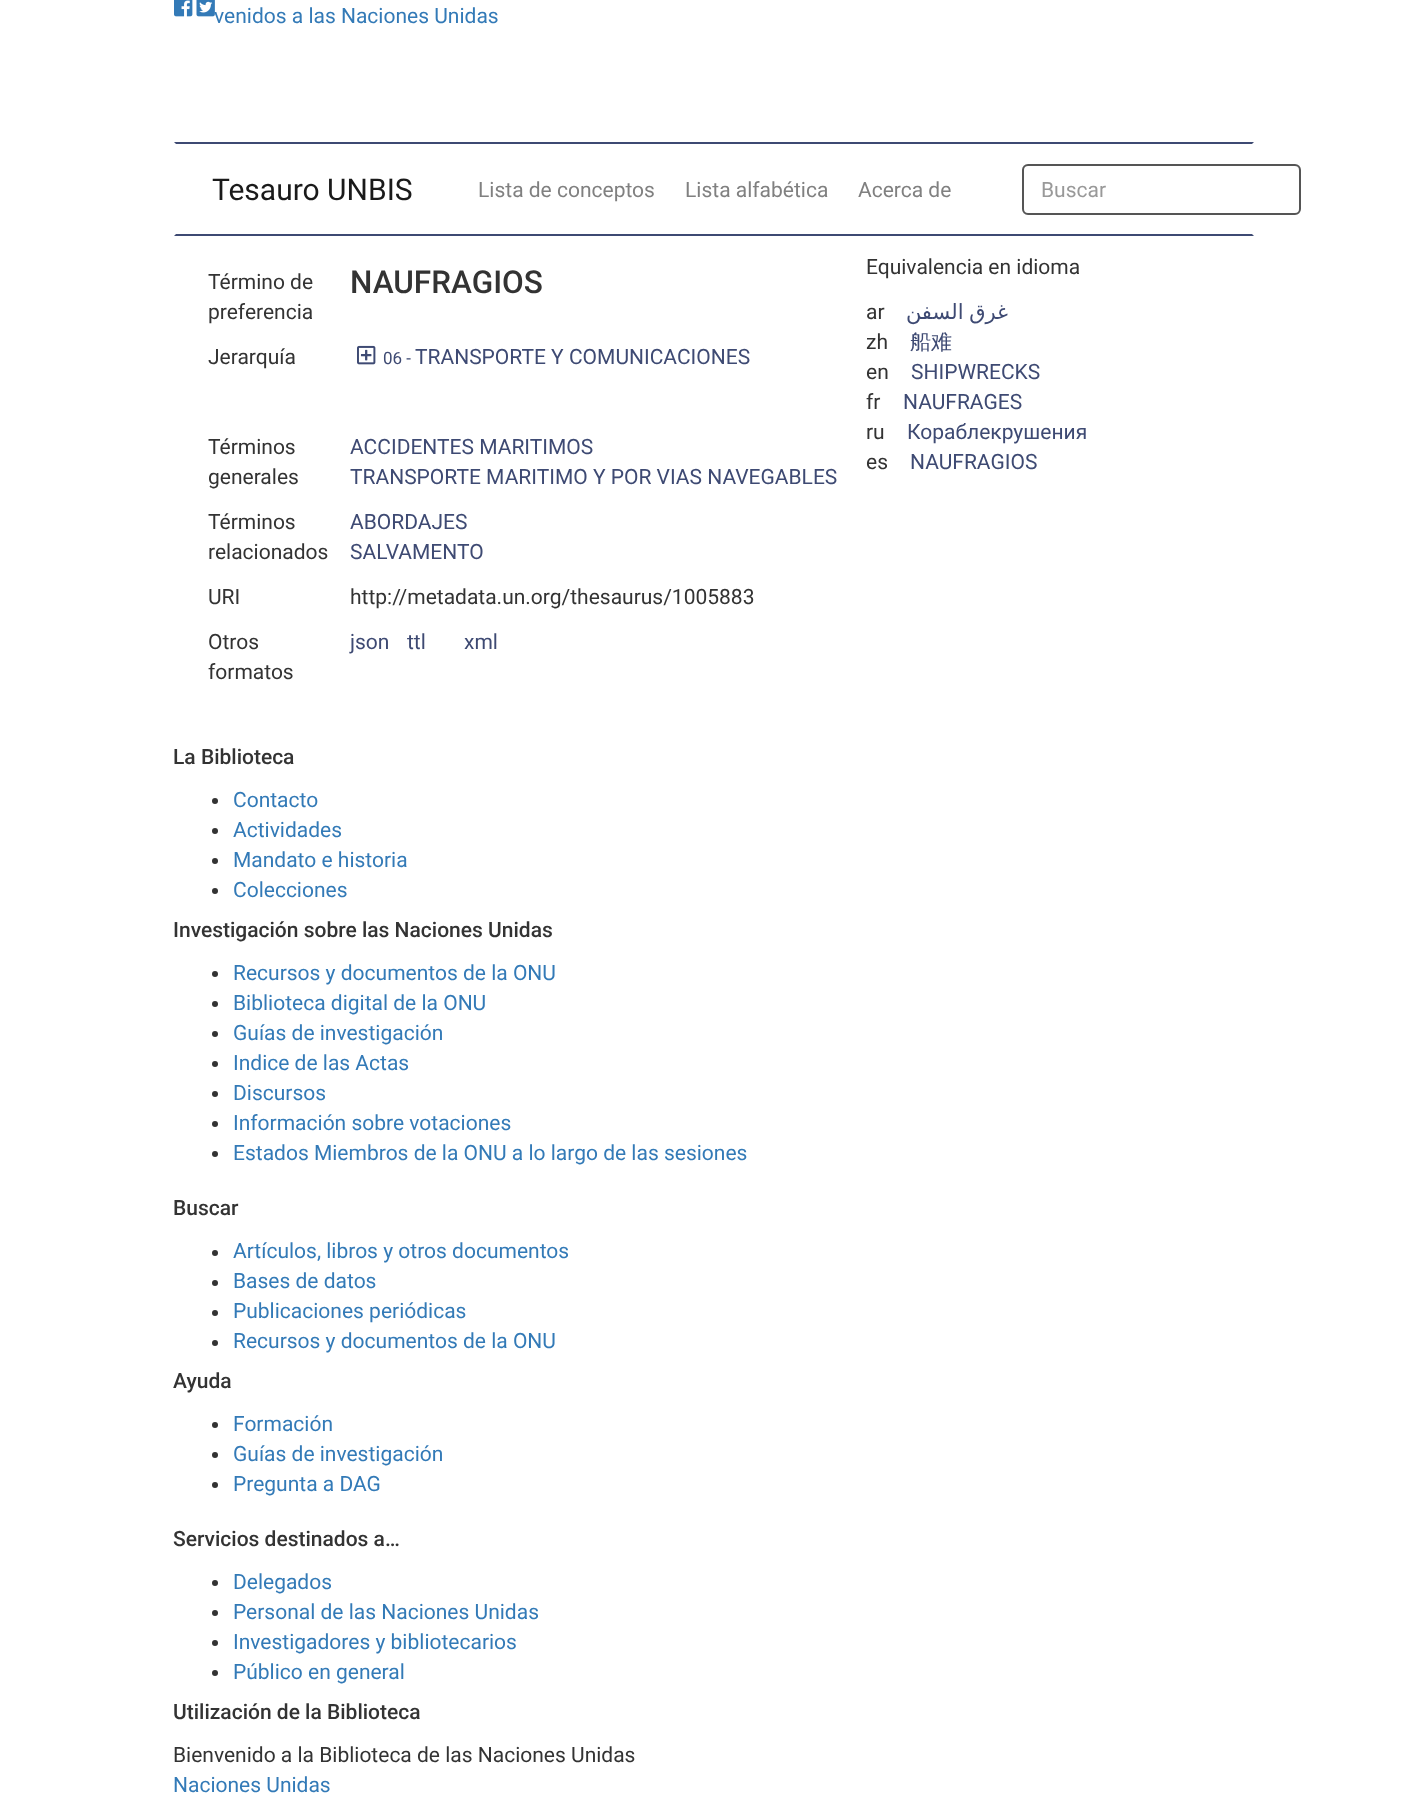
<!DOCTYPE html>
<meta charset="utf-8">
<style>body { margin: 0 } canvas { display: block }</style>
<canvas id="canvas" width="1426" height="1801"></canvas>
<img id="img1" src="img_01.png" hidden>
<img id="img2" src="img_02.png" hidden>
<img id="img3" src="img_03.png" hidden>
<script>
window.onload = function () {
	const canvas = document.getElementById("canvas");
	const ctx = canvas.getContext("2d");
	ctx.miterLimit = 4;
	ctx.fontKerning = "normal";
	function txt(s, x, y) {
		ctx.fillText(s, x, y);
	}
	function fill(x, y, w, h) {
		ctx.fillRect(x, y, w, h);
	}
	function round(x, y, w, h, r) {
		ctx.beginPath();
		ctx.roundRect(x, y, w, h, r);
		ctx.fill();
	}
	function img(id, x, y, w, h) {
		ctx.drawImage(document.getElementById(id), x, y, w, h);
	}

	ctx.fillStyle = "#FFFFFF";
	fill(0, 0, 1426, 1801);
	img("img1", 174, 0, 19, 17);
	img("img2", 196, 0, 19, 17);
	ctx.fillStyle = "#3E4A73";
	ctx.beginPath();
	ctx.moveTo(174, 142);
	ctx.lineTo(1254, 142);
	ctx.lineTo(1252, 144);
	ctx.lineTo(176, 144);
	ctx.closePath();
	ctx.fill();
	ctx.beginPath();
	ctx.moveTo(1254, 236);
	ctx.lineTo(174, 236);
	ctx.lineTo(176, 234);
	ctx.lineTo(1252, 234);
	ctx.closePath();
	ctx.fill();
	ctx.beginPath();
	ctx.roundRect(1023, 165, 101, 49, 5);
	ctx.strokeStyle = "#CCCCCC";
	ctx.lineWidth = 2;
	ctx.stroke();
	ctx.fillStyle = "#FFFFFF";
	round(1022, 164, 279, 51, 6);
	ctx.fillStyle = "#ECECEC";
	ctx.beginPath();
	ctx.moveTo(1028, 166);
	ctx.lineTo(1294, 166);
	ctx.bezierCurveTo(1297, 166, 1299, 169, 1299, 171);
	ctx.lineTo(1299, 170);
	ctx.bezierCurveTo(1299, 167, 1297, 165, 1294, 165);
	ctx.lineTo(1028, 165);
	ctx.bezierCurveTo(1025, 165, 1023, 167, 1023, 170);
	ctx.lineTo(1023, 171);
	ctx.bezierCurveTo(1023, 169, 1025, 166, 1028, 166);
	ctx.closePath();
	ctx.fill();
	ctx.beginPath();
	ctx.roundRect(1023, 165, 277, 49, 5);
	ctx.strokeStyle = "#555555";
	ctx.stroke();
	img("img3", 357, 345, 19, 20);
	ctx.fillStyle = "#333333";
	ctx.beginPath();
	ctx.arc(215, 801, 3, 0, Math.PI * 2);
	ctx.fill();
	ctx.beginPath();
	ctx.arc(215, 831, 3, 0, Math.PI * 2);
	ctx.fill();
	ctx.beginPath();
	ctx.arc(215, 861, 3, 0, Math.PI * 2);
	ctx.fill();
	ctx.beginPath();
	ctx.arc(215, 891, 3, 0, Math.PI * 2);
	ctx.fill();
	ctx.beginPath();
	ctx.arc(215, 974, 3, 0, Math.PI * 2);
	ctx.fill();
	ctx.beginPath();
	ctx.arc(215, 1004, 3, 0, Math.PI * 2);
	ctx.fill();
	ctx.beginPath();
	ctx.arc(215, 1034, 3, 0, Math.PI * 2);
	ctx.fill();
	ctx.beginPath();
	ctx.arc(215, 1064, 3, 0, Math.PI * 2);
	ctx.fill();
	ctx.beginPath();
	ctx.arc(215, 1094, 3, 0, Math.PI * 2);
	ctx.fill();
	ctx.beginPath();
	ctx.arc(215, 1124, 3, 0, Math.PI * 2);
	ctx.fill();
	ctx.beginPath();
	ctx.arc(215, 1154, 3, 0, Math.PI * 2);
	ctx.fill();
	ctx.beginPath();
	ctx.arc(215, 1253, 3, 0, Math.PI * 2);
	ctx.fill();
	ctx.beginPath();
	ctx.arc(215, 1283, 3, 0, Math.PI * 2);
	ctx.fill();
	ctx.beginPath();
	ctx.arc(215, 1313, 3, 0, Math.PI * 2);
	ctx.fill();
	ctx.beginPath();
	ctx.arc(215, 1343, 3, 0, Math.PI * 2);
	ctx.fill();
	ctx.beginPath();
	ctx.arc(215, 1425, 3, 0, Math.PI * 2);
	ctx.fill();
	ctx.beginPath();
	ctx.arc(215, 1455, 3, 0, Math.PI * 2);
	ctx.fill();
	ctx.beginPath();
	ctx.arc(215, 1485, 3, 0, Math.PI * 2);
	ctx.fill();
	ctx.beginPath();
	ctx.arc(215, 1583, 3, 0, Math.PI * 2);
	ctx.fill();
	ctx.beginPath();
	ctx.arc(215, 1613, 3, 0, Math.PI * 2);
	ctx.fill();
	ctx.beginPath();
	ctx.arc(215, 1643, 3, 0, Math.PI * 2);
	ctx.fill();
	ctx.beginPath();
	ctx.arc(215, 1673, 3, 0, Math.PI * 2);
	ctx.fill();
	ctx.font = "21px Roboto";
	ctx.fillStyle = "#337AB7";
	txt("venidos a las Naciones Unidas", 214, 23);
	ctx.font = "30px Roboto";
	ctx.fillStyle = "#1A1A1A";
	txt("Tesauro UNBIS", 212, 200);
	ctx.font = "21px Roboto";
	ctx.fillStyle = "#808080";
	txt("Lista de conceptos", 478, 197);
	txt("Lista alfabética", 685, 197);
	txt("Acerca de", 858, 197);
	ctx.fillStyle = "#999999";
	txt("Buscar", 1041, 197);
	ctx.fillStyle = "#333333";
	txt("Término de", 208, 289);
	txt("preferencia", 208, 319);
	ctx.font = "500 31.5px Roboto";
	txt("NAUFRAGIOS", 350, 293);
	ctx.font = "21px Roboto";
	txt("Jerarquía", 208, 364);
	ctx.font = "17px Roboto";
	ctx.fillStyle = "#3E4A73";
	txt("06 -", 383, 364);
	ctx.font = "21px Roboto";
	txt("TRANSPORTE Y COMUNICACIONES", 415, 364);
	ctx.fillStyle = "#333333";
	txt("Términos", 208, 454);
	txt("generales", 208, 484);
	ctx.fillStyle = "#3E4A73";
	txt("ACCIDENTES MARITIMOS", 350, 454);
	txt("TRANSPORTE MARITIMO Y POR VIAS NAVEGABLES", 350, 484);
	ctx.fillStyle = "#333333";
	txt("Términos", 208, 529);
	txt("relacionados", 208, 559);
	ctx.fillStyle = "#3E4A73";
	txt("ABORDAJES", 350, 529);
	txt("SALVAMENTO", 350, 559);
	ctx.fillStyle = "#333333";
	txt("URI", 208, 604);
	txt("http://metadata.un.org/thesaurus/1005883", 350, 604);
	txt("Otros", 208, 649);
	txt("formatos", 208, 679);
	ctx.fillStyle = "#3E4A73";
	txt("json", 350, 649);
	txt("ttl", 407, 649);
	txt("xml", 464, 649);
	ctx.fillStyle = "#333333";
	txt("Equivalencia en idioma", 866, 274);
	txt("ar", 866, 319);
	ctx.wordSpacing = "-1px";
	ctx.direction = "rtl";
	ctx.font = "21px DejaVu Sans";
	ctx.fillStyle = "#3E4A73";
	txt("غرق السفن", 1008, 319);
	ctx.wordSpacing = "0px";
	ctx.direction = "ltr";
	ctx.font = "21px Roboto";
	ctx.fillStyle = "#333333";
	txt("zh", 866, 349);
	ctx.font = "500 21px WenQuanYi Zen Hei";
	ctx.fillStyle = "#3E4A73";
	txt("船难", 910, 349);
	ctx.font = "21px Roboto";
	ctx.fillStyle = "#333333";
	txt("en", 866, 379);
	ctx.fillStyle = "#3E4A73";
	txt("SHIPWRECKS", 911, 379);
	ctx.fillStyle = "#333333";
	txt("fr", 866, 409);
	ctx.fillStyle = "#3E4A73";
	txt("NAUFRAGES", 903, 409);
	ctx.fillStyle = "#333333";
	txt("ru", 866, 439);
	ctx.fillStyle = "#3E4A73";
	txt("Кораблекрушения", 907, 439);
	ctx.fillStyle = "#333333";
	txt("es", 866, 469);
	ctx.fillStyle = "#3E4A73";
	txt("NAUFRAGIOS", 910, 469);
	ctx.font = "500 21px Roboto";
	ctx.fillStyle = "#333333";
	txt("La Biblioteca", 173, 764);
	ctx.font = "21px Roboto";
	ctx.fillStyle = "#337AB7";
	txt("Contacto", 233, 807);
	txt("Actividades", 233, 837);
	txt("Mandato e historia", 233, 867);
	txt("Colecciones", 233, 897);
	ctx.font = "500 21px Roboto";
	ctx.fillStyle = "#333333";
	txt("Investigación sobre las Naciones Unidas", 173, 937);
	ctx.font = "21px Roboto";
	ctx.fillStyle = "#337AB7";
	txt("Recursos y documentos de la ONU", 233, 980);
	txt("Biblioteca digital de la ONU", 233, 1010);
	txt("Guías de investigación", 233, 1040);
	txt("Indice de las Actas", 233, 1070);
	txt("Discursos", 233, 1100);
	txt("Información sobre votaciones", 233, 1130);
	txt("Estados Miembros de la ONU a lo largo de las sesiones", 233, 1160);
	ctx.font = "500 21px Roboto";
	ctx.fillStyle = "#333333";
	txt("Buscar", 173, 1215);
	ctx.font = "21px Roboto";
	ctx.fillStyle = "#337AB7";
	txt("Artículos, libros y otros documentos", 233, 1258);
	txt("Bases de datos", 233, 1288);
	txt("Publicaciones periódicas", 233, 1318);
	txt("Recursos y documentos de la ONU", 233, 1348);
	ctx.font = "500 21px Roboto";
	ctx.fillStyle = "#333333";
	txt("Ayuda", 173, 1388);
	ctx.font = "21px Roboto";
	ctx.fillStyle = "#337AB7";
	txt("Formación", 233, 1431);
	txt("Guías de investigación", 233, 1461);
	txt("Pregunta a DAG", 233, 1491);
	ctx.font = "500 21px Roboto";
	ctx.fillStyle = "#333333";
	txt("Servicios destinados a…", 173, 1546);
	ctx.font = "21px Roboto";
	ctx.fillStyle = "#337AB7";
	txt("Delegados", 233, 1589);
	txt("Personal de las Naciones Unidas", 233, 1619);
	txt("Investigadores y bibliotecarios", 233, 1649);
	txt("Público en general", 233, 1679);
	ctx.font = "500 21px Roboto";
	ctx.fillStyle = "#333333";
	txt("Utilización de la Biblioteca", 173, 1719);
	ctx.font = "21px Roboto";
	txt("Bienvenido a la Biblioteca de las Naciones Unidas", 173, 1762);
	ctx.fillStyle = "#337AB7";
	txt("Naciones Unidas", 173, 1792);
};
</script>
